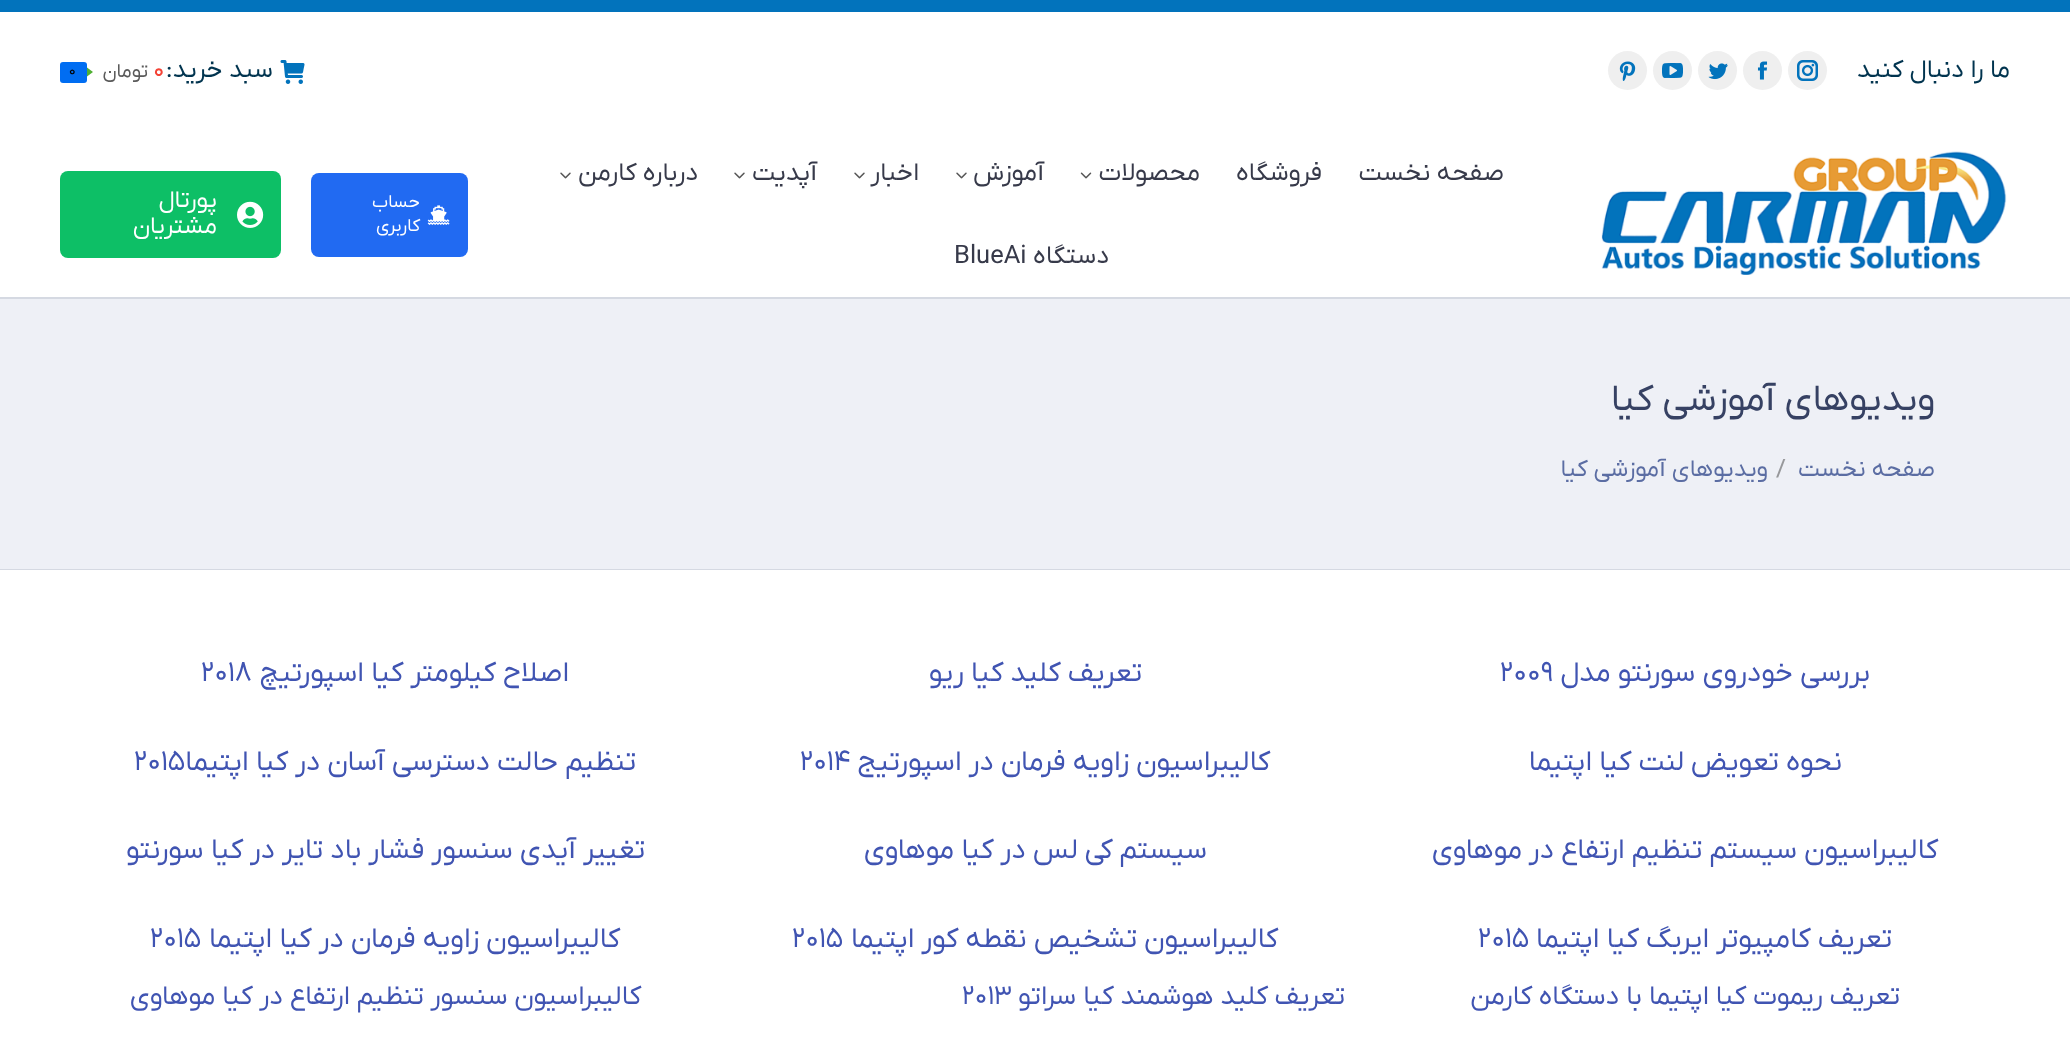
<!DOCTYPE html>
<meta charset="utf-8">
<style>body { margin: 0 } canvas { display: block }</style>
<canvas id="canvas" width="2070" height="1041"></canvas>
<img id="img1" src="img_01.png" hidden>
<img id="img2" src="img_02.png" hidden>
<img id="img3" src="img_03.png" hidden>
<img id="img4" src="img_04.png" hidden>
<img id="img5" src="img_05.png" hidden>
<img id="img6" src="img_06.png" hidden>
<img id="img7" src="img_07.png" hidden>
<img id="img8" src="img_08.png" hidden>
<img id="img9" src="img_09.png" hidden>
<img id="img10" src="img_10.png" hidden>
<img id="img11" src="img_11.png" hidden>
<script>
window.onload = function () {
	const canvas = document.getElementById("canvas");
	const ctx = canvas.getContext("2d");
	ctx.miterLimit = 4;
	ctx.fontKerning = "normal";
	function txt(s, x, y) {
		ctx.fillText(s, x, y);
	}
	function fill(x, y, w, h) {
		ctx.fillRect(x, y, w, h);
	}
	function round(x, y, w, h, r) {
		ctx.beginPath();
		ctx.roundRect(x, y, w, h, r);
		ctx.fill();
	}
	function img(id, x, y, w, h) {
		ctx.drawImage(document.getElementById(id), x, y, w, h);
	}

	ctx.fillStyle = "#FFFFFF";
	fill(0, 0, 2070, 1041);
	ctx.fillStyle = "#0273BC";
	fill(0, 0, 2070, 12);
	ctx.fillStyle = "#EFEFEF";
	ctx.beginPath();
	ctx.arc(1807.5, 70.5, 19.5, 0, Math.PI * 2);
	ctx.fill();
	img("img1", 1797, 60, 21, 21);
	ctx.beginPath();
	ctx.arc(1762.5, 70.5, 19.5, 0, Math.PI * 2);
	ctx.fill();
	img("img2", 1757, 61, 11, 19);
	ctx.beginPath();
	ctx.arc(1717.5, 70.5, 19.5, 0, Math.PI * 2);
	ctx.fill();
	img("img3", 1708, 63, 20, 17);
	ctx.beginPath();
	ctx.arc(1672.5, 70.5, 19.5, 0, Math.PI * 2);
	ctx.fill();
	img("img4", 1662, 63, 21, 15);
	ctx.beginPath();
	ctx.arc(1627.5, 70.5, 19.5, 0, Math.PI * 2);
	ctx.fill();
	img("img5", 1619, 61, 17, 20);
	img("img6", 280, 60, 25, 24);
	ctx.fillStyle = "#006DF2";
	round(60, 62, 27, 21, 3);
	ctx.fillStyle = "#50B033";
	ctx.beginPath();
	ctx.moveTo(87, 76.5);
	ctx.lineTo(87, 67.5);
	ctx.lineTo(93, 72);
	ctx.closePath();
	ctx.fill();
	img("img7", 1601, 151, 406, 124);
	img("img8", 1080, 172, 12, 7);
	img("img9", 956, 172, 11, 7);
	img("img9", 854, 172, 11, 7);
	img("img9", 734, 172, 11, 7);
	img("img9", 560, 172, 11, 7);
	ctx.fillStyle = "#216AF2";
	round(311, 173, 157, 84, 8);
	img("img10", 427, 205, 23, 20);
	ctx.fillStyle = "#0DBF66";
	round(60, 171, 221, 87, 8);
	img("img11", 237, 201, 27, 27);
	ctx.fillStyle = "#EEF0F6";
	fill(0, 299, 2070, 270);
	ctx.fillStyle = "#D5D9E2";
	fill(0, 297, 2070, 2);
	fill(0, 569, 2070, 1);
	ctx.direction = "rtl";
	ctx.font = "25.5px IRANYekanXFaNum";
	ctx.fillStyle = "#01344F";
	txt("ما را دنبال کنید", 2010, 77);
	txt("سبد خرید:", 273, 77);
	ctx.direction = "ltr";
	ctx.font = "24px IRANYekanXFaNum";
	ctx.fillStyle = "#F44336";
	txt("0", 153, 77);
	ctx.direction = "rtl";
	ctx.font = "19.5px IRANYekanXFaNum";
	ctx.fillStyle = "#5A5A5A";
	txt("تومان", 148, 77);
	ctx.direction = "ltr";
	ctx.font = "15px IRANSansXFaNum";
	ctx.fillStyle = "#000000";
	txt("0", 69, 75);
	ctx.direction = "rtl";
	ctx.font = "25.5px IRANYekanXFaNum";
	ctx.fillStyle = "#373A4A";
	txt("صفحه نخست", 1504, 180);
	txt("فروشگاه", 1322, 180);
	txt("محصولات", 1200, 180);
	txt("آموزش", 1044, 180);
	txt("اخبار", 919, 180);
	txt("آپدیت", 817, 180);
	txt("درباره کارمن", 698, 180);
	txt("دستگاه", 1109, 263);
	ctx.direction = "ltr";
	txt("BlueAi", 954, 263);
	ctx.direction = "rtl";
	ctx.font = "18px IRANYekanXFaNum";
	ctx.fillStyle = "#FFFFFF";
	txt("حساب", 420, 207);
	txt("کاربری", 420, 231);
	ctx.font = "24px IRANYekanXFaNum";
	txt("پورتال", 217, 207);
	txt("مشتریان", 217, 233);
	ctx.font = "37.5px IRANYekanXFaNum";
	ctx.fillStyle = "#364163";
	txt("ویدیوهای آموزشی کیا", 1935, 410);
	ctx.font = "24px IRANYekanXFaNum";
	ctx.fillStyle = "#5B6DA3";
	txt("صفحه نخست", 1935, 476);
	ctx.direction = "ltr";
	ctx.fillStyle = "#97989B";
	txt("/", 1776, 476);
	ctx.direction = "rtl";
	ctx.fillStyle = "#5B6DA3";
	txt("ویدیوهای آموزشی کیا", 1768, 476);
	ctx.font = "28.5px IRANYekanXFaNum";
	ctx.fillStyle = "#4054B2";
	txt("بررسی خودروی سورنتو مدل", 1870, 681);
	ctx.direction = "ltr";
	txt("2009", 1500, 681);
	ctx.direction = "rtl";
	txt("تعریف کلید کیا ریو", 1142, 681);
	txt("اصلاح کیلومتر کیا اسپورتیچ", 569, 681);
	ctx.direction = "ltr";
	txt("2018", 201, 681);
	ctx.direction = "rtl";
	txt("نحوه تعویض لنت کیا اپتیما", 1842, 770);
	txt("کالیبراسیون زاویه فرمان در اسپورتیج", 1270, 770);
	ctx.direction = "ltr";
	txt("2014", 800, 770);
	ctx.direction = "rtl";
	txt("تنظیم حالت دسترسی آسان در کیا اپتیما", 636, 770);
	ctx.direction = "ltr";
	txt("2015", 134, 770);
	ctx.direction = "rtl";
	txt("کالیبراسیون سیستم تنظیم ارتفاع در", 1938, 858);
	txt("موهاوی", 1522, 858);
	txt("سیستم کی لس در کیا موهاوی", 1207, 858);
	txt("تغییر آیدی سنسور فشار باد تایر در کیا سورنتو", 645, 858);
	txt("تعریف کامپیوتر ایربگ کیا اپتیما", 1892, 947);
	ctx.direction = "ltr";
	txt("2015", 1478, 947);
	ctx.direction = "rtl";
	txt("کالیبراسیون تشخیص نقطه کور اپتیما", 1278, 947);
	ctx.direction = "ltr";
	txt("2015", 792, 947);
	ctx.direction = "rtl";
	txt("کالیبراسیون زاویه فرمان در کیا اپتیما", 620, 947);
	ctx.direction = "ltr";
	txt("2015", 150, 947);
	ctx.direction = "rtl";
	ctx.font = "27px IRANYekanXFaNum";
	txt("تعریف ریموت کیا اپتیما با دستگاه کارمن", 1900, 1004);
	txt("تعریف کلید هوشمند کیا سراتو", 1345, 1004);
	ctx.direction = "ltr";
	txt("2013", 962, 1004);
	ctx.direction = "rtl";
	txt("کالیبراسیون سنسور تنظیم ارتفاع در کیا موهاوی", 641, 1004);
};
</script>
